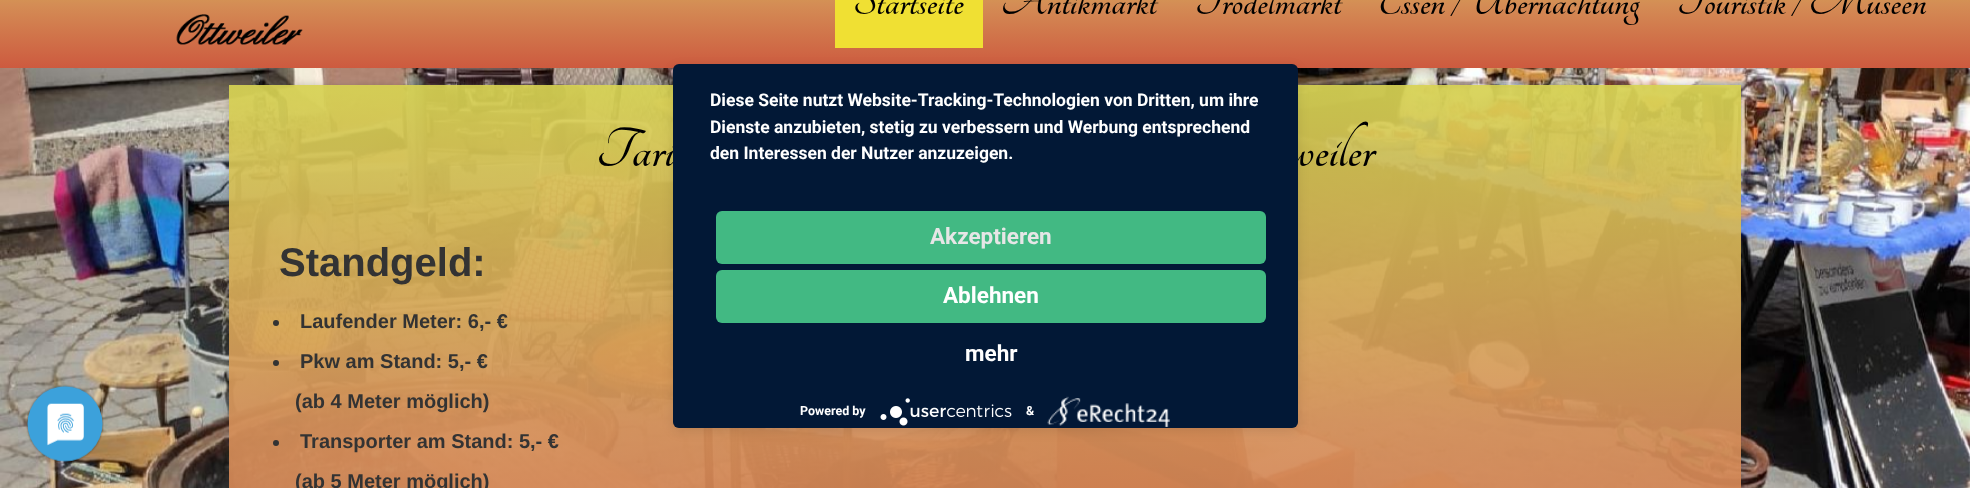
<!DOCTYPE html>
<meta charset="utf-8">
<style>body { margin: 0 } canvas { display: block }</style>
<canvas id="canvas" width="1970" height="488"></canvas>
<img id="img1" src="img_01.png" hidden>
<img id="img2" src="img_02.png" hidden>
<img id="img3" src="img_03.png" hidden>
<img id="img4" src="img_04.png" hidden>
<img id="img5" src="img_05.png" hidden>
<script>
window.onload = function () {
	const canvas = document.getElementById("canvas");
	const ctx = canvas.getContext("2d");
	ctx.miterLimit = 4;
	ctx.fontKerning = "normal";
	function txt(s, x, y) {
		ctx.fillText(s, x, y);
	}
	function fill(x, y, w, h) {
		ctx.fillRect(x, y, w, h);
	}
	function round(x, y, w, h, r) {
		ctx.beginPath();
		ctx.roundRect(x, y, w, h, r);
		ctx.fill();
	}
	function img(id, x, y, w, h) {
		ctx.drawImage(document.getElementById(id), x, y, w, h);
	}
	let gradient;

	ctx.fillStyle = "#FFFFFF";
	fill(0, 0, 1970, 488);
	img("img1", 0, 68, 1970, 420);
	gradient = ctx.createLinearGradient(985, -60, 985, 68);
	gradient.addColorStop(0, "#D5D04E");
	gradient.addColorStop(0.5, "#D48D55");
	gradient.addColorStop(1, "#CD5A3F");
	ctx.fillStyle = gradient;
	fill(0, 0, 1970, 68);
	img("img2", 176, 14, 127, 31);
	ctx.fillStyle = "#F0E033";
	fill(835, 0, 148, 48);
	img("img3", 26, 384, 78, 79);
	ctx.save();
	ctx.beginPath();
	ctx.moveTo(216, 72);
	ctx.lineTo(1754, 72);
	ctx.lineTo(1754, 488);
	ctx.lineTo(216, 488);
	ctx.closePath();
	ctx.moveTo(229, 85);
	ctx.lineTo(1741, 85);
	ctx.lineTo(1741, 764);
	ctx.lineTo(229, 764);
	ctx.closePath();
	ctx.clip("evenodd");
	ctx.fillStyle = "rgba(51, 51, 51, 0.25)";
	ctx.filter = "blur(4px)";
	ctx.beginPath();
	ctx.rect(229, 85, 1512, 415);
	ctx.fill();
	ctx.filter = "none";
	ctx.restore();
	ctx.fillStyle = "rgba(255, 255, 255, 0.25)";
	fill(229, 85, 1512, 403);
	gradient = ctx.createLinearGradient(985, 85, 985, 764);
	gradient.addColorStop(0.01, "rgba(213, 208, 78, 0.9)");
	gradient.addColorStop(0.5, "rgba(212, 141, 85, 0.9)");
	gradient.addColorStop(1, "rgba(205, 90, 63, 0.9)");
	ctx.fillStyle = gradient;
	fill(229, 85, 1512, 403);
	ctx.fillStyle = "rgba(0, 0, 0, 0.1)";
	ctx.filter = "blur(6px)";
	ctx.beginPath();
	ctx.roundRect(673, 68, 625, 363, 6);
	ctx.fill();
	ctx.filter = "none";
	ctx.save();
	ctx.beginPath();
	ctx.roundRect(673, 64, 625, 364, 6);
	ctx.clip();
	ctx.fillStyle = "rgba(0, 0, 0, 0.3)";
	ctx.filter = "blur(22.5px)";
	ctx.beginPath();
	ctx.rect(673, 71, 625, 389);
	ctx.fill();
	ctx.filter = "none";
	ctx.restore();
	ctx.fillStyle = "#333333";
	ctx.beginPath();
	ctx.arc(276, 323, 3, 0, Math.PI * 2);
	ctx.fill();
	ctx.beginPath();
	ctx.arc(276, 363, 3, 0, Math.PI * 2);
	ctx.fill();
	ctx.beginPath();
	ctx.arc(276, 443, 3, 0, Math.PI * 2);
	ctx.fill();
	ctx.font = "bold 45px Tangerine";
	ctx.fillStyle = "#000000";
	txt("Startseite", 853, 14);
	txt("Antikmarkt", 1001, 14);
	txt("Trödelmarkt", 1195, 14);
	txt("Essen / Übernachtung", 1378, 14);
	txt("Touristik / Museen", 1677, 14);
	ctx.font = "bold 60px Tangerine";
	txt("Tari", 596, 166);
	txt("weiler", 1289, 166);
	ctx.fillStyle = "#021836";
	round(673, 64, 625, 364, 6);
	img("img4", 880, 398, 132, 28);
	ctx.font = "bold 17.5px Roboto";
	ctx.fillStyle = "#FFFFFF";
	txt("den Interessen der Nutzer anzuzeigen.", 710, 159);
	txt("Dienste anzubieten, stetig zu verbessern und Werbung entsprechend", 710, 133);
	txt("Diese Seite nutzt Website-Tracking-Technologien von Dritten, um ihre", 710, 106);
	img("img5", 1047, 396, 123, 31);
	ctx.font = "bold 12.5px Roboto";
	txt("&", 1026, 415);
	txt("Powered by", 800, 415);
	ctx.font = "bold 22.5px Roboto";
	txt("mehr", 965, 361);
	ctx.fillStyle = "#42B983";
	round(716, 270, 550, 53, 6);
	ctx.fillStyle = "#FFFFFF";
	txt("Ablehnen", 943, 303);
	ctx.fillStyle = "#42B983";
	round(716, 211, 550, 53, 6);
	ctx.fillStyle = "#E6E6E6";
	txt("Akzeptieren", 930, 244);
	ctx.font = "bold 40px Liberation Sans";
	ctx.fillStyle = "#333333";
	txt("Standgeld:", 279, 276);
	ctx.font = "bold 20px Liberation Sans";
	txt("Laufender Meter: 6,- €", 300, 328);
	txt("Pkw am Stand: 5,- €", 300, 368);
	txt("(ab 4 Meter möglich)", 295, 408);
	txt("Transporter am Stand: 5,- €", 300, 448);
	txt("(ab 5 Meter möglich)", 295, 488);
};
</script>
